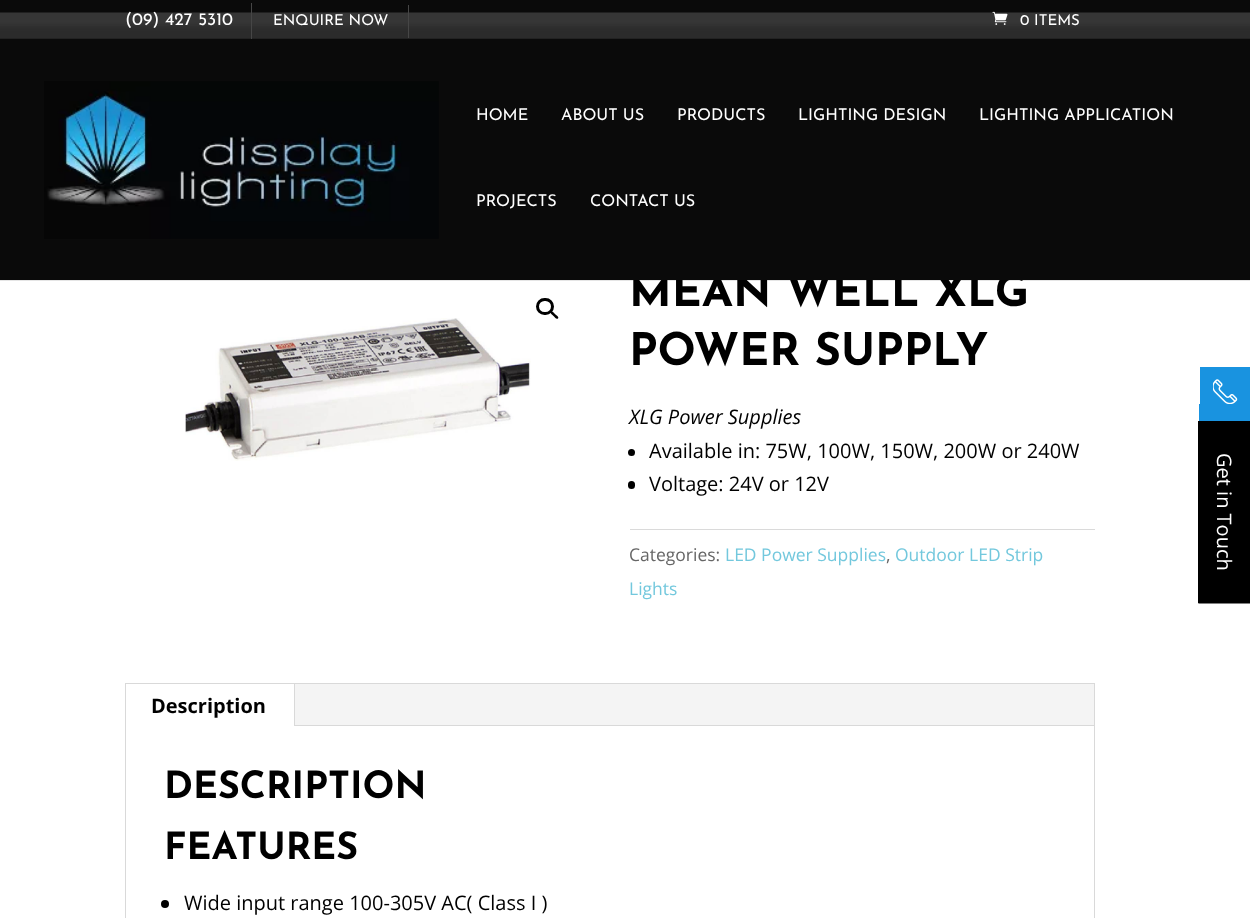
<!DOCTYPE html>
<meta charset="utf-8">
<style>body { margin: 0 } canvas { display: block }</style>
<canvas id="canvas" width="1250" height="918"></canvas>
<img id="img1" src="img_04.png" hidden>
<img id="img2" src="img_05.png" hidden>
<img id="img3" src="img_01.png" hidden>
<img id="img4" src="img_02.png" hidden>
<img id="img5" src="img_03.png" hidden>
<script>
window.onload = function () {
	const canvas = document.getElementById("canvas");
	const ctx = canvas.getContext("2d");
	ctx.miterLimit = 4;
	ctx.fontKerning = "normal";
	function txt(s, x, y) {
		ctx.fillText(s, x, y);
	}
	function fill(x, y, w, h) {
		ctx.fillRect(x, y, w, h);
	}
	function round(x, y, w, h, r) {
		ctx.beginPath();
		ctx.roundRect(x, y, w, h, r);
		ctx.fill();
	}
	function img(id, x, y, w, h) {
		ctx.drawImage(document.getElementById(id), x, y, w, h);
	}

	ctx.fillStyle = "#FFFFFF";
	fill(0, 0, 1250, 918);
	ctx.fillStyle = "rgba(0, 0, 0, 0.1)";
	fill(0, 280, 1250, 1);
	ctx.beginPath();
	ctx.roundRect(537.5, 299.5, 15, 14, 7);
	ctx.strokeStyle = "#000000";
	ctx.lineWidth = 3;
	ctx.stroke();
	ctx.fillStyle = "#000000";
	ctx.beginPath();
	ctx.moveTo(551, 311.5);
	ctx.bezierCurveTo(552, 310, 554.5, 313.5, 555, 314);
	ctx.bezierCurveTo(556, 315, 559.5, 317, 558, 318.5);
	ctx.bezierCurveTo(556.5, 320, 554, 316.5, 553.5, 316);
	ctx.bezierCurveTo(552.5, 315, 549.5, 313, 551, 311.5);
	ctx.closePath();
	ctx.fill();
	img("img1", 185, 318, 346, 143);
	ctx.beginPath();
	ctx.arc(631.5, 452.5, 3.5, 0, Math.PI * 2);
	ctx.fill();
	round(628, 481, 7, 8, 3.5);
	ctx.fillStyle = "#DADADA";
	fill(630, 529, 465, 1);
	ctx.strokeStyle = "#D9D9D9";
	ctx.lineWidth = 1;
	ctx.strokeRect(125.5, 683.5, 969, 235);
	ctx.fillStyle = "#F4F4F4";
	fill(295, 684, 799, 41);
	ctx.fillStyle = "#D9D9D9";
	fill(294, 684, 1, 42);
	fill(295, 725, 799, 1);
	ctx.fillStyle = "#000000";
	ctx.beginPath();
	ctx.arc(165, 904, 4, 0, Math.PI * 2);
	ctx.fill();
	ctx.fillStyle = "#1993E0";
	fill(1200, 367, 50, 37);
	img("img2", 1213, 379, 25, 25);
	fill(1199, 404, 51, 17);
	ctx.fillStyle = "#000000";
	fill(1198, 421, 51, 182);
	ctx.beginPath();
	ctx.moveTo(1249.5, 421.5);
	ctx.lineTo(1249.5, 603);
	ctx.lineTo(1199, 603);
	ctx.lineTo(1199, 421.5);
	ctx.closePath();
	ctx.strokeStyle = "#000000";
	ctx.lineWidth = 1.2;
	ctx.stroke();
	ctx.font = "bold 45px Josefin Sans";
	txt("MEAN WELL XLG", 629, 306);
	ctx.fillStyle = "#0A0A0A";
	fill(0, 0, 1250, 280);
	img("img3", 0, 12, 1250, 27);
	img("img4", 992, 11, 16, 14);
	ctx.font = "17.5px Josefin Sans";
	ctx.fillStyle = "#FFFFFF";
	txt("(09) 427 5310", 125, 25);
	ctx.fillStyle = "#464646";
	fill(251, 3, 1, 36);
	ctx.font = "15px Josefin Sans";
	ctx.fillStyle = "#FFFFFF";
	txt("0 ITEMS", 1020, 25);
	txt("ENQUIRE NOW", 273, 25);
	ctx.fillStyle = "#464646";
	fill(408, 5, 1, 33);
	ctx.font = "16.25px Josefin Sans";
	ctx.fillStyle = "#FFFFFF";
	txt("CONTACT US", 590, 206);
	txt("PROJECTS", 476, 206);
	txt("LIGHTING APPLICATION", 979, 120);
	txt("LIGHTING DESIGN", 798, 120);
	txt("PRODUCTS", 677, 120);
	txt("ABOUT US", 561, 120);
	txt("HOME", 476, 120);
	img("img5", 44, 81, 395, 158);
	ctx.font = "bold 45px Josefin Sans";
	ctx.fillStyle = "#000000";
	txt("POWER SUPPLY", 629, 365);
	ctx.font = "italic 20px Open Sans";
	txt("XLG Power Supplies", 629, 424);
	ctx.font = "20px Open Sans";
	txt("Available in: 75W, 100W, 150W, 200W or 240W", 649, 458);
	txt("Voltage: 24V or 12V", 649, 491);
	ctx.font = "17.5px Open Sans";
	ctx.fillStyle = "#666666";
	txt("Categories:", 629, 561);
	ctx.fillStyle = "#73C8DD";
	txt("LED Power Supplies", 725, 561);
	ctx.fillStyle = "#666666";
	txt(",", 886, 561);
	ctx.fillStyle = "#73C8DD";
	txt("Outdoor LED Strip", 895, 561);
	txt("Lights", 629, 595);
	ctx.font = "bold 20px Open Sans";
	ctx.fillStyle = "#000000";
	txt("Description", 151, 713);
	ctx.font = "bold 37.5px Josefin Sans";
	txt("DESCRIPTION", 164, 798);
	txt("FEATURES", 164, 859);
	ctx.font = "20px Open Sans";
	txt("Wide input range 100-305V AC( Class I )", 184, 910);
	ctx.fillStyle = "#FFFFFF";
	ctx.save();
	ctx.translate(1217, 453);
	ctx.rotate(90 * Math.PI / 180);
	ctx.fillText("Get in Touch", 0, 0);
	ctx.restore();
};
</script>
